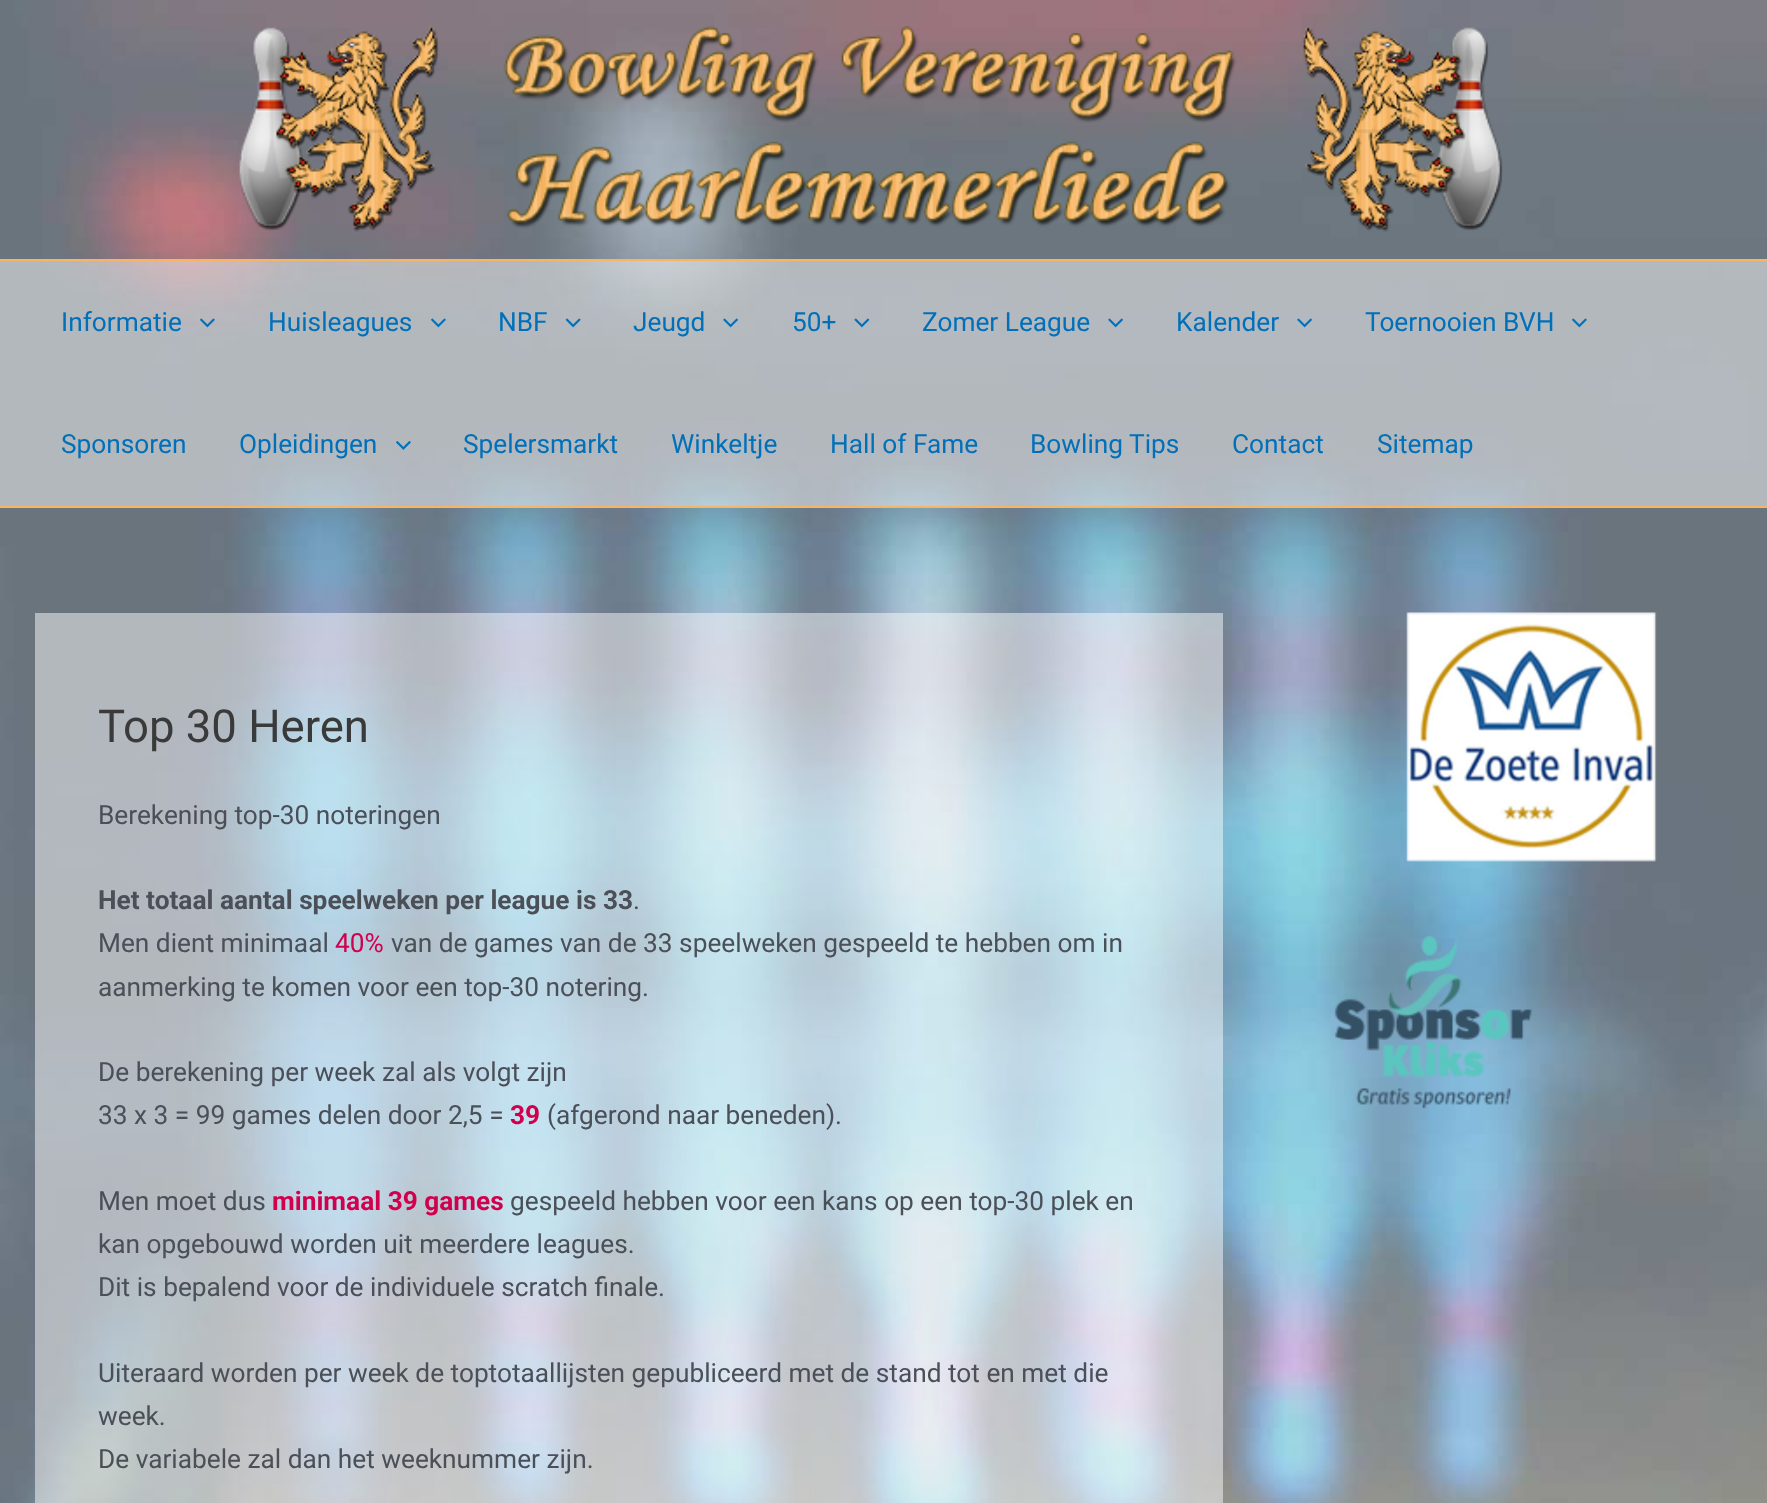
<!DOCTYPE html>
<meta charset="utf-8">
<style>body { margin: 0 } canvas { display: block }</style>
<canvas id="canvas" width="1767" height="1503"></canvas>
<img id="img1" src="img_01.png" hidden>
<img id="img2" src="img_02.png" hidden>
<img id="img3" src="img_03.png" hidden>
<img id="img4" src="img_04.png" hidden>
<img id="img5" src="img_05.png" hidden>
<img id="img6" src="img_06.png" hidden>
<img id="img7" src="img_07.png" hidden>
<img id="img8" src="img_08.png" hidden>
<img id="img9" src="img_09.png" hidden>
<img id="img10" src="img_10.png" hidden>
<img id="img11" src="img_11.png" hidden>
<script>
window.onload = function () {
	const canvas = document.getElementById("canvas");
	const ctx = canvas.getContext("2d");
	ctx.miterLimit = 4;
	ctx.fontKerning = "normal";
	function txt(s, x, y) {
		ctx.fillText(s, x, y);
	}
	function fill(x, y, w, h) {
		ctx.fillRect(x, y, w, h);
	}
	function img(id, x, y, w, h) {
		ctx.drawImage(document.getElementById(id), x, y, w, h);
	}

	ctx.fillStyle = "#FFFFFF";
	fill(0, 0, 1767, 1503);
	img("img1", 0, 0, 1767, 1503);
	ctx.fillStyle = "#F6B565";
	fill(0, 259, 1767, 2);
	img("img2", 238, 26, 1265, 206);
	ctx.fillStyle = "rgba(255, 255, 255, 0.49)";
	fill(0, 261, 1767, 245);
	ctx.fillStyle = "#F6B565";
	fill(0, 506, 1767, 2);
	img("img3", 200, 318, 15, 10);
	img("img4", 431, 318, 15, 10);
	img("img5", 565, 318, 16, 10);
	img("img6", 723, 318, 16, 10);
	img("img7", 854, 318, 16, 10);
	img("img8", 1108, 318, 16, 10);
	img("img8", 1297, 318, 16, 10);
	img("img4", 1572, 318, 15, 10);
	img("img9", 396, 440, 15, 10);
	ctx.fillStyle = "rgba(255, 255, 255, 0.49)";
	fill(35, 613, 1188, 890);
	img("img10", 1406, 612, 251, 250);
	img("img11", 1334, 936, 198, 173);
	ctx.font = "26.25px Roboto";
	ctx.fillStyle = "#0170B9";
	txt("Informatie", 61, 331);
	txt("Huisleagues", 268, 331);
	txt("NBF", 498, 331);
	txt("Jeugd", 633, 331);
	txt("50+", 792, 331);
	txt("Zomer League", 922, 331);
	txt("Kalender", 1176, 331);
	txt("Toernooien BVH", 1365, 331);
	txt("Sponsoren", 61, 453);
	txt("Opleidingen", 239, 453);
	txt("Spelersmarkt", 463, 453);
	txt("Winkeltje", 671, 453);
	txt("Hall of Fame", 830, 453);
	txt("Bowling Tips", 1030, 453);
	txt("Contact", 1232, 453);
	txt("Sitemap", 1377, 453);
	ctx.font = "45.5px Roboto";
	ctx.fillStyle = "#3A3A3A";
	txt("Top 30 Heren", 98, 742);
	ctx.font = "26.25px Roboto";
	ctx.fillStyle = "#4B4F58";
	txt("Berekening top-30 noteringen", 98, 824);
	ctx.font = "bold 26.25px Roboto";
	txt("Het totaal aantal speelweken per league is 33", 98, 909);
	ctx.font = "26.25px Roboto";
	txt(".", 633, 909);
	txt("Men dient minimaal", 98, 952);
	ctx.fillStyle = "#D1004C";
	txt("40%", 335, 952);
	ctx.fillStyle = "#4B4F58";
	txt("van de games van de 33 speelweken gespeeld te hebben om in", 391, 952);
	txt("aanmerking te komen voor een top-30 notering.", 98, 996);
	txt("De berekening per week zal als volgt zijn", 98, 1081);
	txt("33 x 3 = 99 games delen door 2,5 =", 98, 1124);
	ctx.font = "bold 26.25px Roboto";
	ctx.fillStyle = "#D1004C";
	txt("39", 510, 1124);
	ctx.font = "26.25px Roboto";
	ctx.fillStyle = "#4B4F58";
	txt("(afgerond naar beneden).", 547, 1124);
	txt("Men moet dus", 98, 1210);
	ctx.font = "bold 26.25px Roboto";
	ctx.fillStyle = "#D1004C";
	txt("minimaal 39 games", 272, 1210);
	ctx.font = "26.25px Roboto";
	ctx.fillStyle = "#4B4F58";
	txt("gespeeld hebben voor een kans op een top-30 plek en", 510, 1210);
	txt("kan opgebouwd worden uit meerdere leagues.", 98, 1253);
	txt("Dit is bepalend voor de individuele scratch finale.", 98, 1296);
	txt("Uiteraard worden per week de toptotaallijsten gepubliceerd met de stand tot en met die", 98, 1382);
	txt("week.", 98, 1425);
	txt("De variabele zal dan het weeknummer zijn.", 98, 1468);
};
</script>
